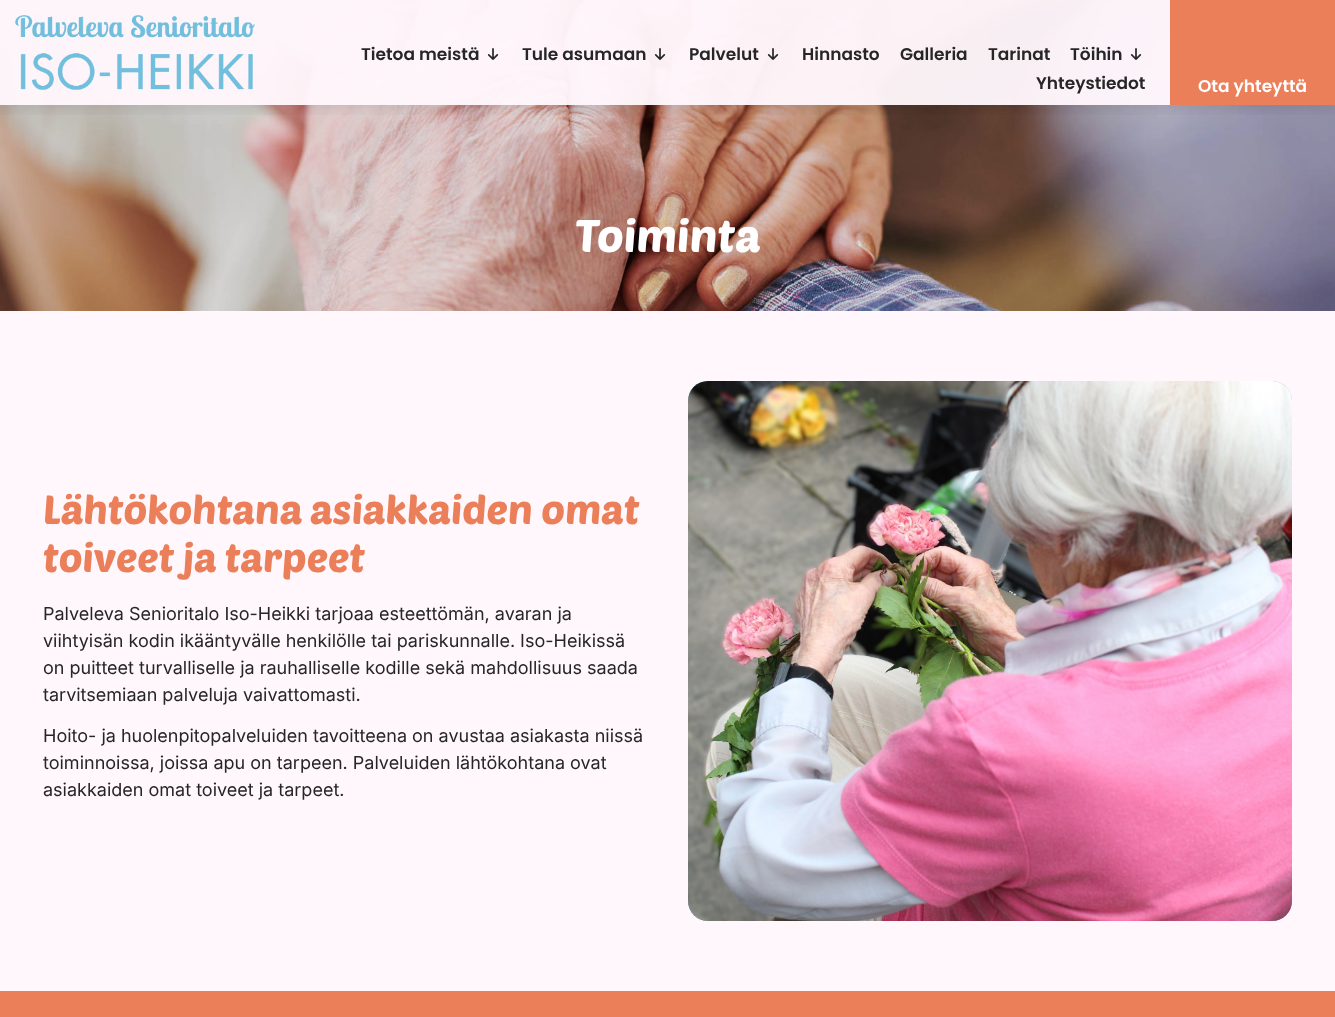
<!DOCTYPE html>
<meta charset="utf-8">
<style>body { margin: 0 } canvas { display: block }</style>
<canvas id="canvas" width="1335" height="1017"></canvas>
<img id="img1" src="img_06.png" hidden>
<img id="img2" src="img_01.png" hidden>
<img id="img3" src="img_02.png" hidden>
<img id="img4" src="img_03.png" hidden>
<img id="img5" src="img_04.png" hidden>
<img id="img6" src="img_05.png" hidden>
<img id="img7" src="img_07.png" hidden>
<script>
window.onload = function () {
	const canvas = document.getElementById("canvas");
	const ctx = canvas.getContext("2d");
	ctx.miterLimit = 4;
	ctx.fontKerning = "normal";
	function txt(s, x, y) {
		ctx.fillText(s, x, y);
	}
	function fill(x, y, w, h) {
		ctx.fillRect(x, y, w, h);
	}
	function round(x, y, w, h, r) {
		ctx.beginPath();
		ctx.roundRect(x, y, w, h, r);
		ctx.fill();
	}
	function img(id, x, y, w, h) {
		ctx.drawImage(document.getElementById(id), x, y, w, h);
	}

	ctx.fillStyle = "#FFF7FC";
	fill(0, 0, 1335, 1017);
	img("img1", 0, 0, 1335, 311);
	ctx.save();
	ctx.beginPath();
	ctx.rect(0, 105, 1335, 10);
	ctx.clip();
	ctx.fillStyle = "rgba(0, 0, 0, 0.08)";
	ctx.filter = "blur(7.5px)";
	ctx.beginPath();
	ctx.rect(0, 5, 1335, 105);
	ctx.fill();
	ctx.filter = "none";
	ctx.restore();
	ctx.fillStyle = "rgba(255, 247, 252, 0.96)";
	fill(0, 0, 1170, 105);
	img("img2", 15, 15, 240, 75);
	img("img3", 487, 48, 12, 12);
	img("img4", 654, 48, 12, 12);
	img("img5", 767, 48, 12, 12);
	img("img6", 1130, 48, 12, 12);
	ctx.fillStyle = "#EA7F59";
	fill(1170, 0, 165, 105);
	ctx.fillStyle = "#72BEDD";
	round(688, 381, 604, 540, 20);
	img("img7", 688, 381, 604, 540);
	ctx.fillStyle = "#EA7F59";
	fill(0, 991, 1335, 26);
	ctx.font = "600 17px Poppins";
	ctx.fillStyle = "#262626";
	txt("Tietoa meistä", 361, 60);
	txt("Tule asumaan", 522, 60);
	txt("Palvelut", 689, 60);
	txt("Hinnasto", 802, 60);
	txt("Galleria", 900, 60);
	txt("Tarinat", 988, 60);
	txt("Töihin", 1070, 60);
	txt("Yhteystiedot", 1036, 89);
	ctx.fillStyle = "#FFFFFF";
	txt("Ota yhteyttä", 1198, 92);
	ctx.font = "45px PoetsenOne";
	txt("Toiminta", 575, 252);
	ctx.font = "40px PoetsenOne";
	ctx.fillStyle = "#EA7F59";
	txt("Lähtökohtana asiakkaiden omat", 43, 524);
	txt("toiveet ja tarpeet", 43, 572);
	ctx.font = "18px Inter";
	ctx.fillStyle = "#262626";
	txt("Palveleva Senioritalo Iso-Heikki tarjoaa esteettömän, avaran ja", 43, 620);
	txt("viihtyisän kodin ikääntyvälle henkilölle tai pariskunnalle. Iso-Heikissä", 43, 647);
	txt("on puitteet turvalliselle ja rauhalliselle kodille sekä mahdollisuus saada", 43, 674);
	txt("tarvitsemiaan palveluja vaivattomasti.", 43, 701);
	txt("Hoito- ja huolenpitopalveluiden tavoitteena on avustaa asiakasta niissä", 43, 742);
	txt("toiminnoissa, joissa apu on tarpeen. Palveluiden lähtökohtana ovat", 43, 769);
	txt("asiakkaiden omat toiveet ja tarpeet.", 43, 796);
};
</script>
